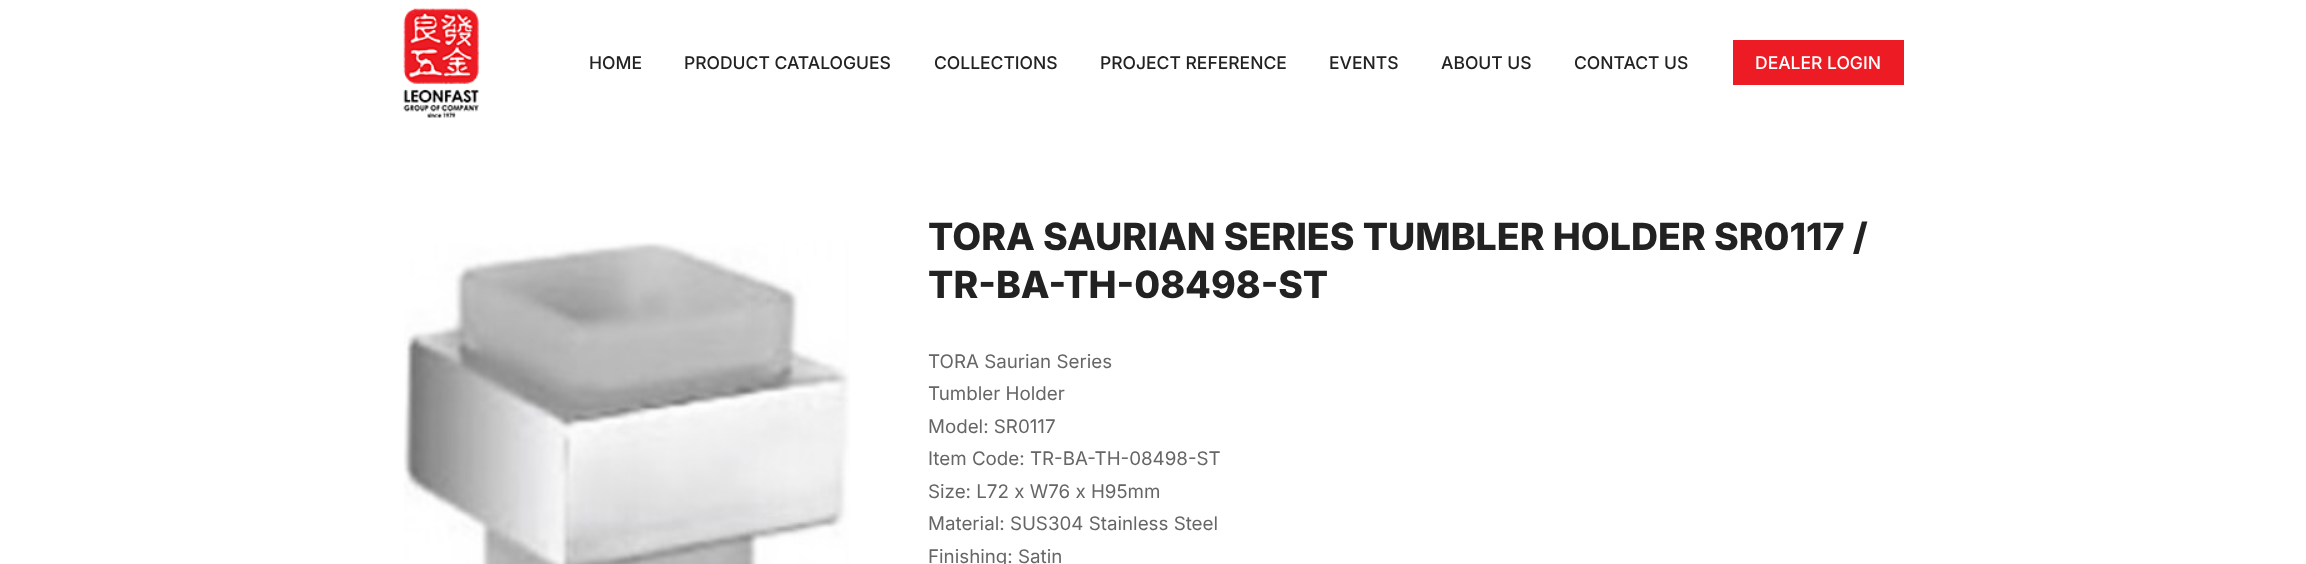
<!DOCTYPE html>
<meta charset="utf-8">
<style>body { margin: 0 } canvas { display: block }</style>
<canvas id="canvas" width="2306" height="564"></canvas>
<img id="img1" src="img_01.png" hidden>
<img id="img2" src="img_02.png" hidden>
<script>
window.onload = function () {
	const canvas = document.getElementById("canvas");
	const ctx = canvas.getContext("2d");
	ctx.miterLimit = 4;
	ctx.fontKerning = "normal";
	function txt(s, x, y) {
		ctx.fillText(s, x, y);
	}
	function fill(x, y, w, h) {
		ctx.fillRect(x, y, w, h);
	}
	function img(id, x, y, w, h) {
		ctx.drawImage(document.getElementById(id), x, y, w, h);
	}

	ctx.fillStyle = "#FFFFFF";
	fill(0, 0, 2306, 564);
	img("img1", 403, 8, 76, 110);
	ctx.fillStyle = "#ED1C24";
	fill(1733, 40, 171, 45);
	img("img2", 403, 242, 447, 322);
	ctx.font = "500 17.5px Inter";
	ctx.fillStyle = "#222222";
	txt("HOME", 589, 69);
	txt("PRODUCT CATALOGUES", 684, 69);
	txt("COLLECTIONS", 934, 69);
	txt("PROJECT REFERENCE", 1100, 69);
	txt("EVENTS", 1329, 69);
	txt("ABOUT US", 1441, 69);
	txt("CONTACT US", 1574, 69);
	ctx.fillStyle = "#FFFFFF";
	txt("DEALER LOGIN", 1755, 69);
	ctx.font = "800 37.5px Inter";
	ctx.fillStyle = "#222222";
	txt("TORA SAURIAN SERIES TUMBLER HOLDER SR0117 /", 928, 250);
	txt("TR-BA-TH-08498-ST", 928, 298);
	ctx.font = "18.75px Inter";
	ctx.fillStyle = "#666666";
	txt("TORA Saurian Series", 928, 368);
	txt("Tumbler Holder", 928, 400);
	txt("Model: SR0117", 928, 433);
	txt("Item Code: TR-BA-TH-08498-ST", 928, 465);
	txt("Size: L72 x W76 x H95mm", 928, 498);
	txt("Material: SUS304 Stainless Steel", 928, 530);
	txt("Finishing: Satin", 928, 563);
};
</script>
